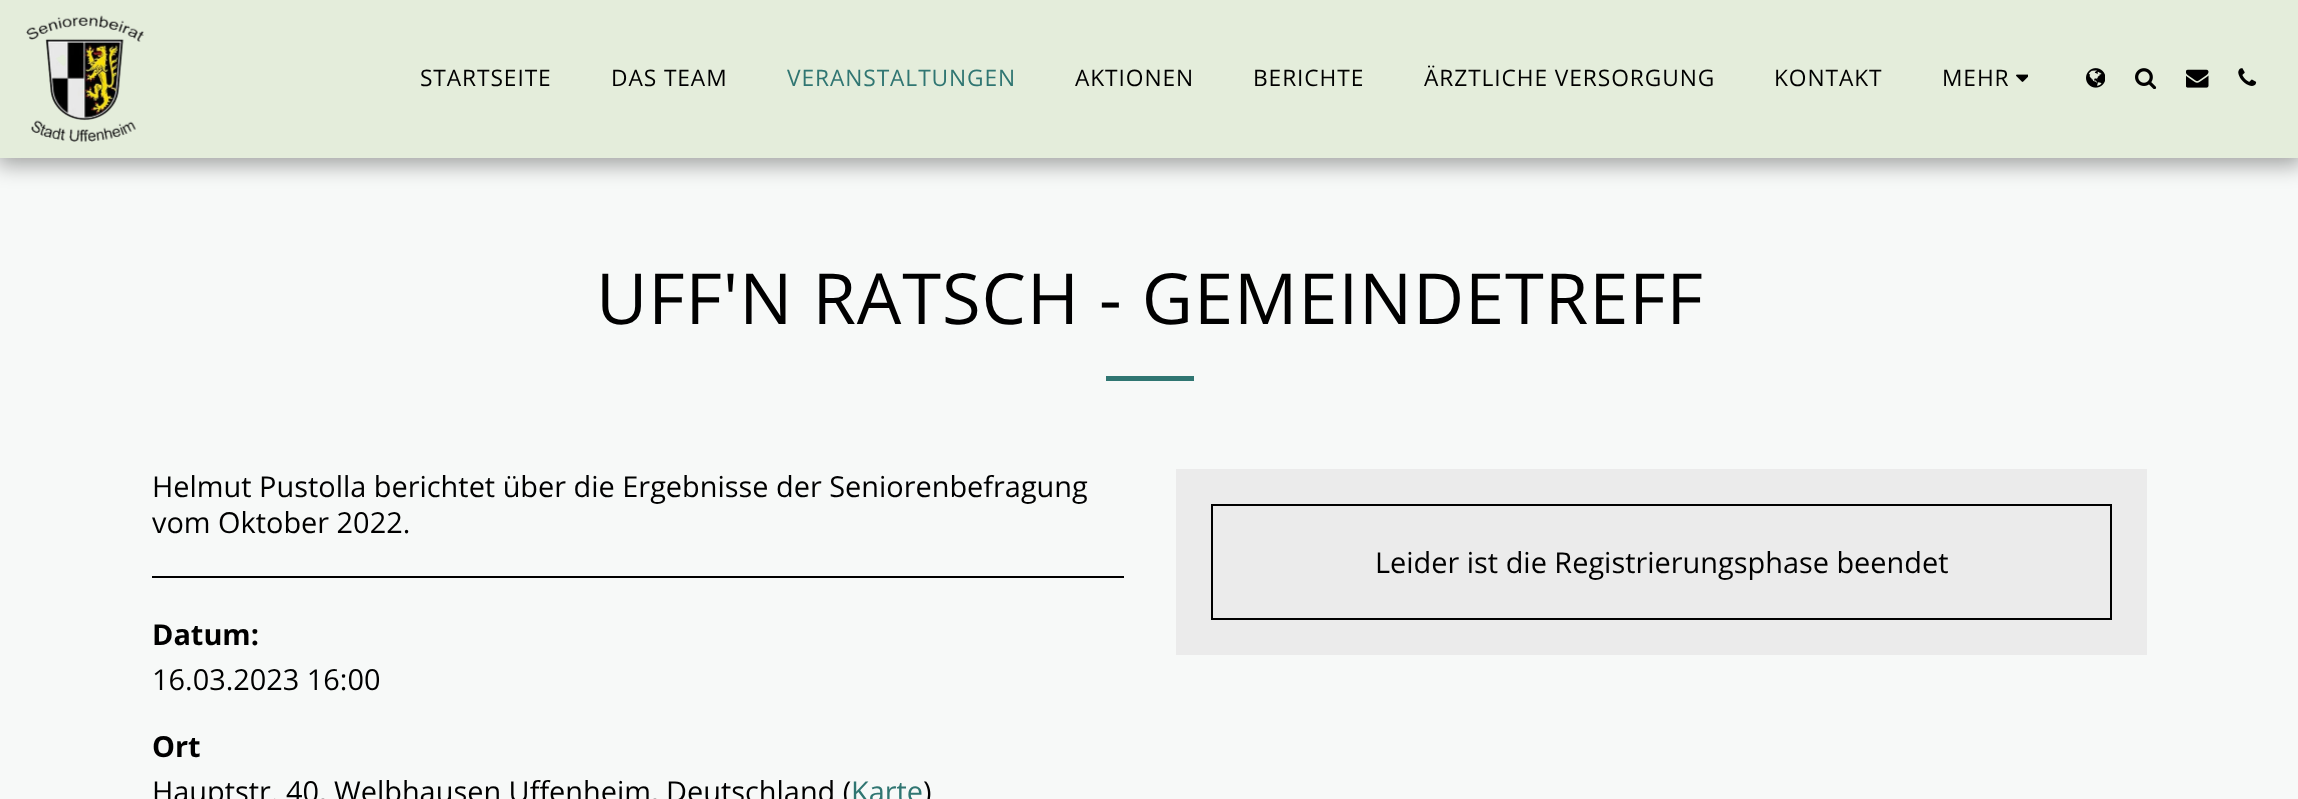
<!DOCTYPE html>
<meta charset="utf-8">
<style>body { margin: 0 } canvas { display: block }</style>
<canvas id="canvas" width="2298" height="799"></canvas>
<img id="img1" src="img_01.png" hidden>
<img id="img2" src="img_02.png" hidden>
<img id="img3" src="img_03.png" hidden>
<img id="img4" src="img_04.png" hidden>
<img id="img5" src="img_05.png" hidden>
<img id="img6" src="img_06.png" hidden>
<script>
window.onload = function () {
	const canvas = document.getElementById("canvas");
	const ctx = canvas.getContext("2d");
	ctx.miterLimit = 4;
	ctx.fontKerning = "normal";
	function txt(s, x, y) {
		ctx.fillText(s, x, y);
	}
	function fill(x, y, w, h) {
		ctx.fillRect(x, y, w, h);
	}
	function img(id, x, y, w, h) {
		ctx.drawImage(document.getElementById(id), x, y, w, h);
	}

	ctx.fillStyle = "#F7F9F8";
	fill(0, 0, 2298, 799);
	ctx.fillStyle = "rgba(0, 0, 0, 0.35)";
	ctx.filter = "blur(10.5px)";
	ctx.beginPath();
	ctx.rect(-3, 0, 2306, 165);
	ctx.fill();
	ctx.filter = "none";
	ctx.fillStyle = "#E4EDDB";
	fill(0, 0, 2298, 158);
	img("img1", 26, 15, 118, 127);
	img("img2", 2016, 74, 12, 8);
	img("img3", 2086, 68, 19, 20);
	img("img4", 2135, 68, 22, 21);
	img("img5", 2186, 69, 23, 19);
	img("img6", 2238, 68, 19, 18);
	ctx.fillStyle = "#307672";
	fill(1106, 376, 88, 5);
	ctx.fillStyle = "#000000";
	fill(152, 576, 972, 2);
	ctx.fillStyle = "#EBEBEB";
	fill(1176, 469, 971, 186);
	ctx.strokeStyle = "#000000";
	ctx.lineWidth = 2;
	ctx.strokeRect(1212, 505, 899, 114);
	ctx.letterSpacing = "0.9px";
	ctx.font = "22.75px Open Sans";
	ctx.fillStyle = "#000000";
	txt("STARTSEITE", 420, 86);
	txt("DAS TEAM", 611, 86);
	ctx.fillStyle = "#307672";
	txt("VERANSTALTUNGEN", 787, 86);
	ctx.fillStyle = "#000000";
	txt("AKTIONEN", 1075, 86);
	txt("BERICHTE", 1253, 86);
	txt("ÄRZTLICHE VERSORGUNG", 1424, 86);
	txt("KONTAKT", 1774, 86);
	txt("MEHR", 1942, 86);
	ctx.font = "70.5px Open Sans";
	txt("UFF'N RATSCH - GEMEINDETREFF", 596, 324);
	ctx.letterSpacing = "0px";
	ctx.font = "28.9px Open Sans";
	txt("Helmut Pustolla berichtet über die Ergebnisse der Seniorenbefragung", 152, 497);
	txt("vom Oktober 2022.", 152, 533);
	ctx.font = "bold 28.9px Open Sans";
	txt("Datum:", 152, 645);
	ctx.font = "28.9px Open Sans";
	txt("16.03.2023 16:00", 152, 690);
	ctx.font = "bold 28.9px Open Sans";
	txt("Ort", 152, 757);
	ctx.font = "28.9px Open Sans";
	txt("Hauptstr. 40, Welbhausen Uffenheim, Deutschland (", 152, 802);
	ctx.fillStyle = "#307672";
	txt("Karte", 851, 802);
	ctx.fillStyle = "#000000";
	txt(")", 923, 802);
	txt("Leider ist die Registrierungsphase beendet", 1375, 573);
};
</script>
